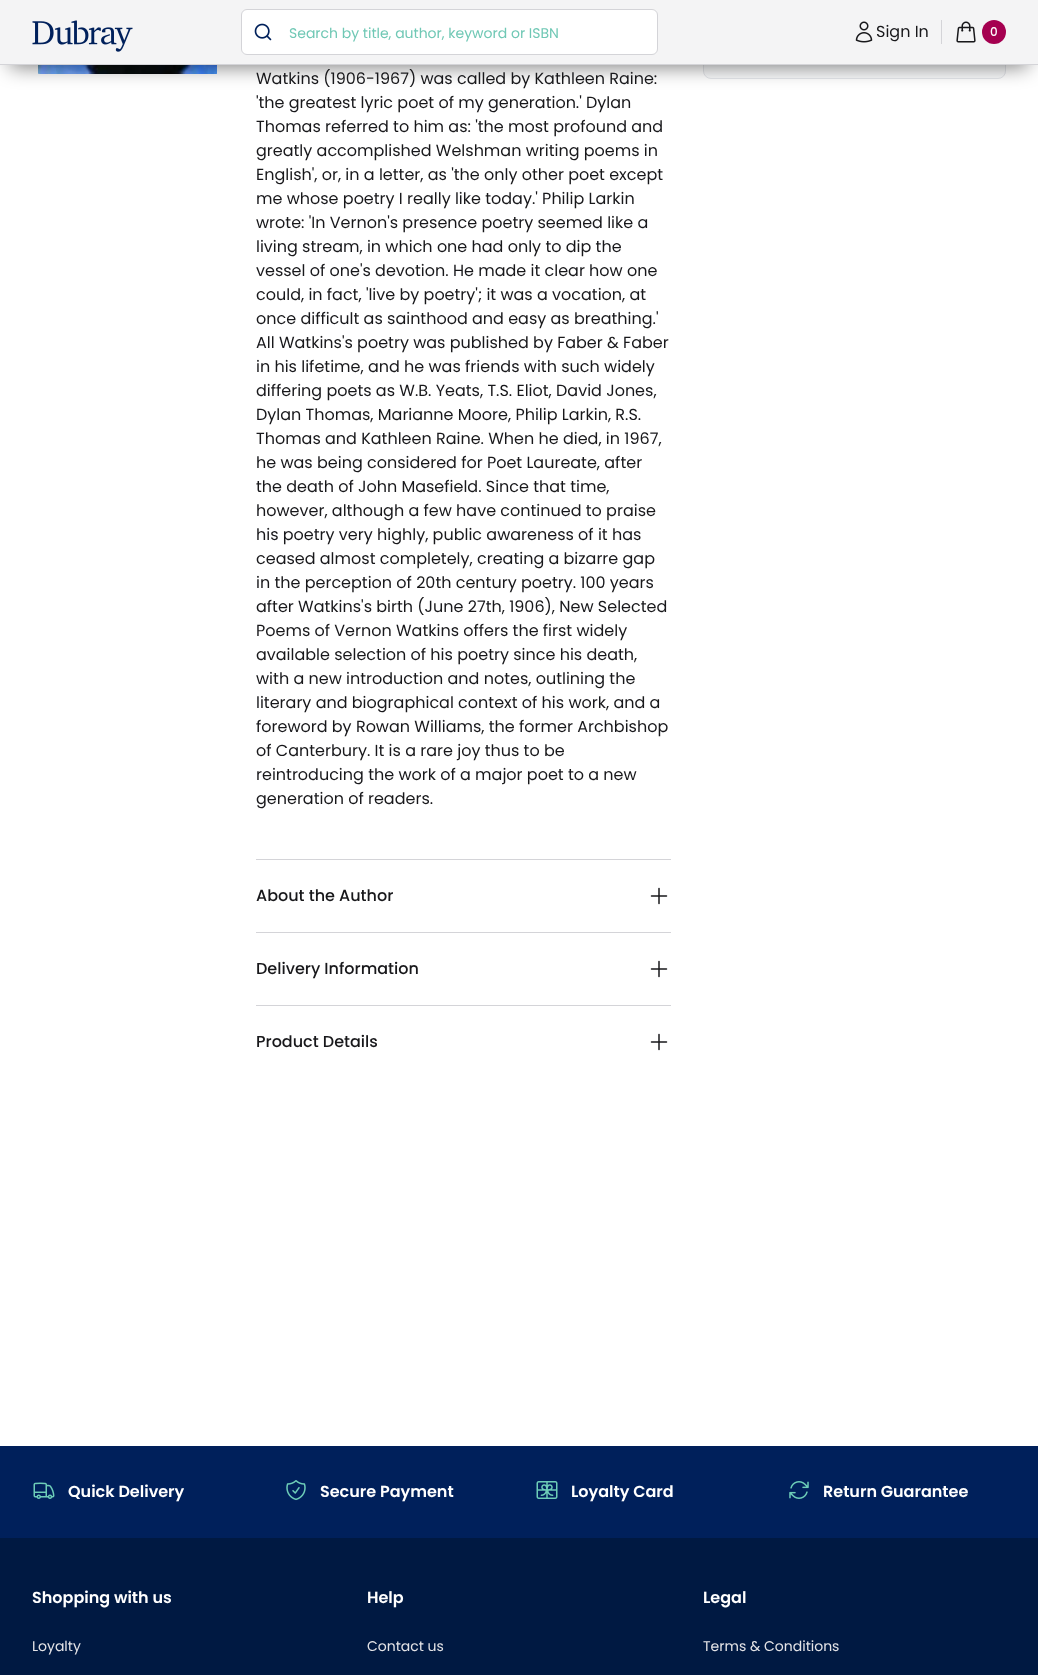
<!DOCTYPE html>
<meta charset="utf-8">
<style>body { margin: 0 } canvas { display: block }</style>
<canvas id="canvas" width="1038" height="1675"></canvas>
<img id="img1" src="img_05.png" hidden>
<img id="img2" src="img_01.png" hidden>
<img id="img3" src="img_02.png" hidden>
<img id="img4" src="img_03.png" hidden>
<img id="img5" src="img_04.png" hidden>
<img id="img6" src="img_06.png" hidden>
<img id="img7" src="img_07.png" hidden>
<img id="img8" src="img_08.png" hidden>
<img id="img9" src="img_09.png" hidden>
<script>
window.onload = function () {
	const canvas = document.getElementById("canvas");
	const ctx = canvas.getContext("2d");
	ctx.miterLimit = 4;
	ctx.fontKerning = "normal";
	function txt(s, x, y) {
		ctx.fillText(s, x, y);
	}
	function fill(x, y, w, h) {
		ctx.fillRect(x, y, w, h);
	}
	function img(id, x, y, w, h) {
		ctx.drawImage(document.getElementById(id), x, y, w, h);
	}

	ctx.fillStyle = "#FFFFFF";
	fill(0, 0, 1038, 1675);
	img("img1", 38, 65, 179, 9);
	ctx.fillStyle = "#F9FAFB";
	ctx.beginPath();
	ctx.roundRect(703.5, -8.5, 302, 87, 7.5);
	ctx.fill();
	ctx.strokeStyle = "#E5E7EB";
	ctx.stroke();
	ctx.fillStyle = "rgba(0, 0, 0, 0.5)";
	ctx.filter = "blur(10px)";
	ctx.beginPath();
	ctx.rect(10, 22, 1018, 45);
	ctx.fill();
	ctx.filter = "none";
	ctx.fillStyle = "#F4F4F5";
	fill(0, 0, 1038, 64);
	ctx.fillStyle = "#D4D4D8";
	fill(0, 64, 1038, 1);
	img("img2", 32, 20, 101, 32);
	ctx.fillStyle = "#FFFFFF";
	ctx.beginPath();
	ctx.roundRect(241.5, 9.5, 416, 45, 5.5);
	ctx.fill();
	ctx.strokeStyle = "#D4D4D8";
	ctx.stroke();
	img("img3", 254, 23, 18, 18);
	img("img4", 855, 21, 18, 22);
	ctx.fillStyle = "#D4D4D8";
	fill(941, 20, 1, 24);
	img("img5", 956, 21, 20, 22);
	ctx.fillStyle = "#A50050";
	ctx.beginPath();
	ctx.arc(994, 32, 12, 0, Math.PI * 2);
	ctx.fill();
	ctx.fillStyle = "#D4D4D8";
	fill(256, 859, 415, 1);
	ctx.beginPath();
	ctx.moveTo(659, 888.5);
	ctx.lineTo(659, 903.5);
	ctx.moveTo(666.5, 896);
	ctx.lineTo(651.5, 896);
	ctx.strokeStyle = "#18181B";
	ctx.lineWidth = 1.5;
	ctx.lineCap = "round";
	ctx.lineJoin = "round";
	ctx.stroke();
	fill(256, 932, 415, 1);
	ctx.beginPath();
	ctx.moveTo(659, 961.5);
	ctx.lineTo(659, 976.5);
	ctx.moveTo(666.5, 969);
	ctx.lineTo(651.5, 969);
	ctx.stroke();
	fill(256, 1005, 415, 1);
	ctx.beginPath();
	ctx.moveTo(659, 1034.5);
	ctx.lineTo(659, 1049.5);
	ctx.moveTo(666.5, 1042);
	ctx.lineTo(651.5, 1042);
	ctx.stroke();
	ctx.fillStyle = "#00205B";
	fill(0, 1446, 1038, 92);
	img("img6", 33, 1482, 22, 17);
	img("img7", 286, 1480, 20, 21);
	img("img8", 536, 1481, 22, 18);
	img("img9", 789, 1481, 20, 18);
	ctx.fillStyle = "#001942";
	fill(0, 1538, 1038, 137);
	ctx.font = "14px Poppins";
	ctx.fillStyle = "#70C8B5";
	txt("Search by title, author, keyword or ISBN", 289, 38);
	ctx.font = "16px Poppins";
	ctx.fillStyle = "#18181B";
	txt("Sign In", 876, 37);
	ctx.font = "500 12px Poppins";
	ctx.fillStyle = "#FFFFFF";
	txt("0", 990, 36);
	ctx.font = "16px Poppins";
	ctx.fillStyle = "#18181B";
	txt("Watkins (1906-1967) was called by Kathleen Raine:", 256, 84);
	txt("'the greatest lyric poet of my generation.' Dylan", 256, 108);
	txt("Thomas referred to him as: 'the most profound and", 256, 132);
	txt("greatly accomplished Welshman writing poems in", 256, 156);
	txt("English', or, in a letter, as 'the only other poet except", 256, 180);
	txt("me whose poetry I really like today.' Philip Larkin", 256, 204);
	txt("wrote: 'In Vernon's presence poetry seemed like a", 256, 228);
	txt("living stream, in which one had only to dip the", 256, 252);
	txt("vessel of one's devotion. He made it clear how one", 256, 276);
	txt("could, in fact, 'live by poetry'; it was a vocation, at", 256, 300);
	txt("once difficult as sainthood and easy as breathing.'", 256, 324);
	txt("All Watkins's poetry was published by Faber & Faber", 256, 348);
	txt("in his lifetime, and he was friends with such widely", 256, 372);
	txt("differing poets as W.B. Yeats, T.S. Eliot, David Jones,", 256, 396);
	txt("Dylan Thomas, Marianne Moore, Philip Larkin, R.S.", 256, 420);
	txt("Thomas and Kathleen Raine. When he died, in 1967,", 256, 444);
	txt("he was being considered for Poet Laureate, after", 256, 468);
	txt("the death of John Masefield. Since that time,", 256, 492);
	txt("however, although a few have continued to praise", 256, 516);
	txt("his poetry very highly, public awareness of it has", 256, 540);
	txt("ceased almost completely, creating a bizarre gap", 256, 564);
	txt("in the perception of 20th century poetry. 100 years", 256, 588);
	txt("after Watkins's birth (June 27th, 1906), New Selected", 256, 612);
	txt("Poems of Vernon Watkins offers the first widely", 256, 636);
	txt("available selection of his poetry since his death,", 256, 660);
	txt("with a new introduction and notes, outlining the", 256, 684);
	txt("literary and biographical context of his work, and a", 256, 708);
	txt("foreword by Rowan Williams, the former Archbishop", 256, 732);
	txt("of Canterbury. It is a rare joy thus to be", 256, 756);
	txt("reintroducing the work of a major poet to a new", 256, 780);
	txt("generation of readers.", 256, 804);
	ctx.font = "500 16px Poppins";
	txt("About the Author", 256, 901);
	txt("Delivery Information", 256, 974);
	txt("Product Details", 256, 1047);
	ctx.font = "600 16px Poppins";
	ctx.fillStyle = "#FFFFFF";
	txt("Quick Delivery", 68, 1497);
	txt("Secure Payment", 320, 1497);
	txt("Loyalty Card", 571, 1497);
	txt("Return Guarantee", 823, 1497);
	txt("Shopping with us", 32, 1603);
	ctx.font = "14px Poppins";
	ctx.fillStyle = "#E4E4E7";
	txt("Loyalty", 32, 1651);
	ctx.font = "600 16px Poppins";
	ctx.fillStyle = "#FFFFFF";
	txt("Help", 367, 1603);
	ctx.font = "14px Poppins";
	ctx.fillStyle = "#E4E4E7";
	txt("Contact us", 367, 1651);
	ctx.font = "600 16px Poppins";
	ctx.fillStyle = "#FFFFFF";
	txt("Legal", 703, 1603);
	ctx.font = "14px Poppins";
	ctx.fillStyle = "#E4E4E7";
	txt("Terms & Conditions", 703, 1651);
};
</script>
